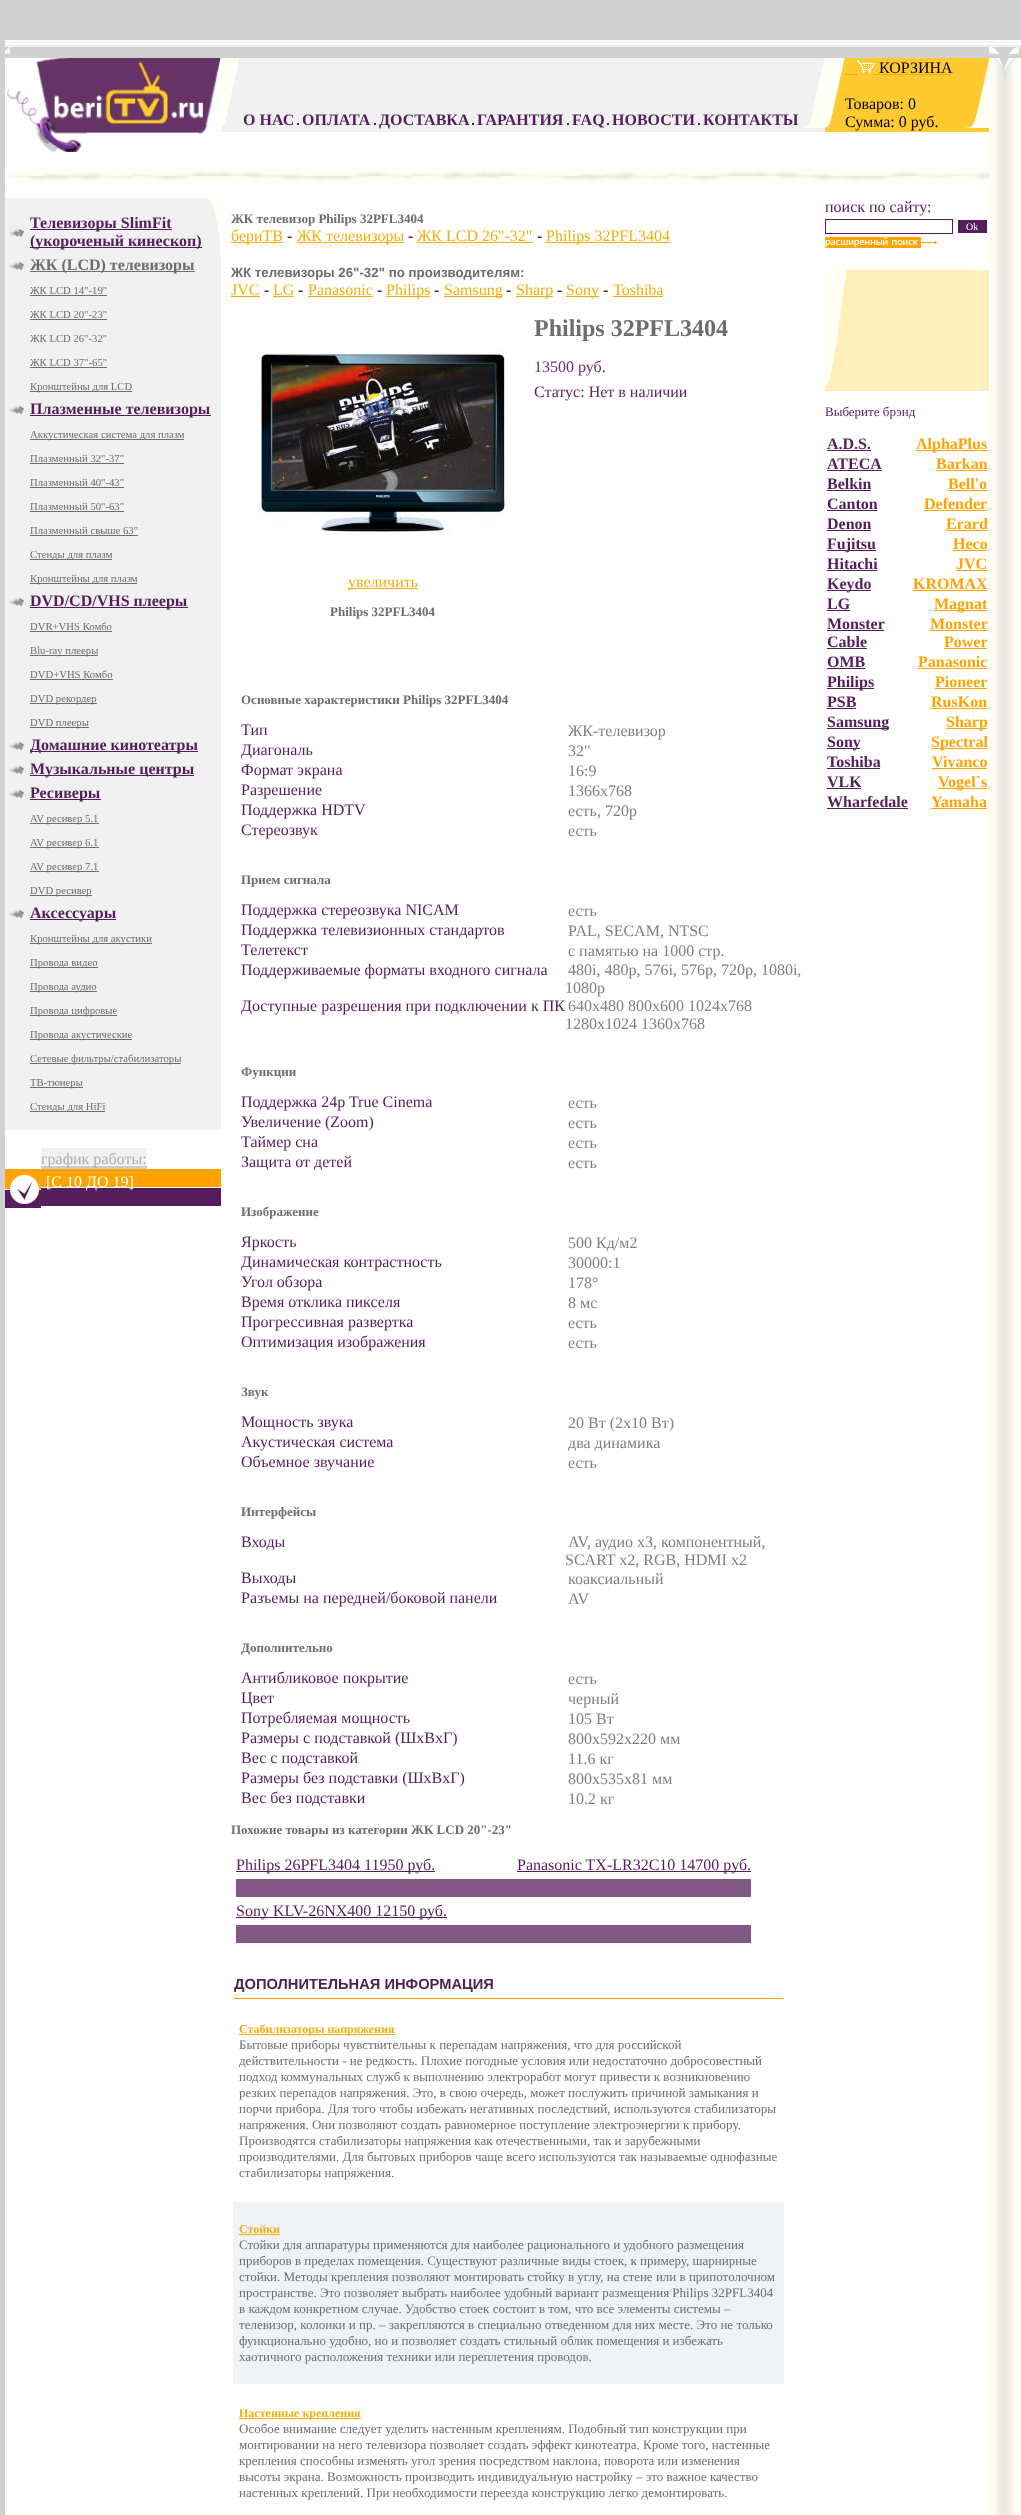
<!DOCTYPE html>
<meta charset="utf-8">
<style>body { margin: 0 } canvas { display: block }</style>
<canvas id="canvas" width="1021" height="2515"></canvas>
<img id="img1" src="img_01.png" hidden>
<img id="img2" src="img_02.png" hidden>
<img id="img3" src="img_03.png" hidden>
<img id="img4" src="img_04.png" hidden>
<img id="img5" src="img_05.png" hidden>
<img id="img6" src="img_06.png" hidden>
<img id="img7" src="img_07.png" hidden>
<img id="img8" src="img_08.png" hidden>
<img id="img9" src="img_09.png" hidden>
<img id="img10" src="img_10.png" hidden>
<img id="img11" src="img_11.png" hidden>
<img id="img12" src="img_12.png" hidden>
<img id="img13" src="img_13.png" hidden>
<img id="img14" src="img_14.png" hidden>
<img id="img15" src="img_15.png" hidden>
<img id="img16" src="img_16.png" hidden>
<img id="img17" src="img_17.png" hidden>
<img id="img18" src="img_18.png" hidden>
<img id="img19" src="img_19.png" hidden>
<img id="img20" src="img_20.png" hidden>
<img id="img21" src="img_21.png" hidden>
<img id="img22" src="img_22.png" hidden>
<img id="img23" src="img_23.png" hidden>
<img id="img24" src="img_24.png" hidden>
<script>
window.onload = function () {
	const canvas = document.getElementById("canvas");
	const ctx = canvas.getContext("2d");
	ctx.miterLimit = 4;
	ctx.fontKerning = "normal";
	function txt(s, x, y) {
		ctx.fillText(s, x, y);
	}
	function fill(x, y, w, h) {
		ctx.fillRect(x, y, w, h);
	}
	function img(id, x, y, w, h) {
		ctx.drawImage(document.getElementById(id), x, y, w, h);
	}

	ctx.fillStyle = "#D1D1D1";
	fill(0, 0, 1021, 2515);
	img("img1", 5, 40, 984, 7);
	img("img2", 5, 47, 5, 7);
	img("img3", 989, 40, 32, 7);
	img("img4", 989, 47, 30, 7);
	ctx.fillStyle = "#FFFFFF";
	fill(5, 58, 216, 110);
	img("img5", 7, 58, 214, 94);
	fill(221, 132, 768, 36);
	ctx.fillStyle = "#F1F1F1";
	fill(221, 58, 604, 74);
	img("img6", 221, 58, 18, 70);
	ctx.fillStyle = "#551D5C";
	fill(297, 123, 2, 2);
	fill(374, 123, 2, 2);
	fill(472, 123, 2, 2);
	fill(567, 123, 2, 2);
	fill(607, 123, 2, 2);
	fill(698, 123, 2, 2);
	img("img7", 804, 58, 21, 70);
	ctx.fillStyle = "#FFCA30";
	fill(825, 58, 164, 74);
	img("img8", 825, 58, 20, 70);
	img("img9", 857, 60, 18, 13);
	ctx.fillStyle = "#F0B00C";
	fill(845, 74, 12, 1);
	fill(875, 74, 77, 1);
	img("img10", 965, 61, 24, 67);
	img("img11", 989, 58, 32, 110);
	img("img12", 989, 58, 29, 20);
	img("img13", 5, 168, 984, 30);
	img("img14", 989, 168, 32, 30);
	ctx.fillStyle = "#FFFFFF";
	fill(5, 1130, 216, 1385);
	ctx.fillStyle = "#F1F1F1";
	fill(5, 198, 216, 932);
	img("img15", 207, 198, 14, 59);
	img("img16", 9, 229, 15, 8);
	ctx.fillStyle = "#551D5C";
	fill(30, 229, 142, 1);
	fill(30, 247, 172, 1);
	img("img16", 9, 262, 15, 8);
	ctx.fillStyle = "#6D6D6D";
	fill(30, 271, 165, 1);
	fill(30, 295, 77, 1);
	fill(30, 319, 77, 1);
	fill(30, 367, 77, 1);
	fill(30, 391, 102, 1);
	img("img16", 9, 406, 15, 8);
	ctx.fillStyle = "#551D5C";
	fill(30, 415, 181, 1);
	ctx.fillStyle = "#6D6D6D";
	fill(30, 439, 154, 1);
	fill(30, 463, 94, 1);
	fill(30, 487, 94, 1);
	fill(30, 511, 94, 1);
	fill(30, 535, 108, 1);
	fill(30, 559, 82, 1);
	fill(30, 583, 107, 1);
	img("img16", 9, 598, 15, 8);
	ctx.fillStyle = "#551D5C";
	fill(30, 607, 158, 1);
	ctx.fillStyle = "#6D6D6D";
	fill(30, 631, 82, 1);
	fill(30, 655, 68, 1);
	fill(30, 679, 83, 1);
	fill(30, 703, 67, 1);
	fill(30, 727, 59, 1);
	img("img16", 9, 742, 15, 8);
	ctx.fillStyle = "#551D5C";
	fill(30, 751, 168, 1);
	img("img16", 9, 766, 15, 8);
	fill(30, 775, 164, 1);
	img("img16", 9, 790, 15, 8);
	fill(30, 799, 71, 1);
	ctx.fillStyle = "#6D6D6D";
	fill(30, 823, 69, 1);
	fill(30, 847, 69, 1);
	fill(30, 871, 69, 1);
	fill(30, 895, 62, 1);
	img("img16", 9, 910, 15, 8);
	ctx.fillStyle = "#551D5C";
	fill(30, 919, 86, 1);
	ctx.fillStyle = "#6D6D6D";
	fill(30, 943, 122, 1);
	fill(30, 967, 68, 1);
	fill(30, 991, 67, 1);
	fill(30, 1015, 87, 1);
	fill(30, 1039, 102, 1);
	fill(30, 1063, 151, 1);
	fill(30, 1087, 53, 1);
	fill(30, 1111, 75, 1);
	img("img17", 41, 1148, 106, 21);
	img("img18", 5, 1169, 36, 6);
	img("img19", 5, 1175, 36, 33);
	img("img20", 41, 1169, 180, 37);
	ctx.fillStyle = "#FFFFFF";
	fill(221, 198, 768, 2317);
	ctx.fillStyle = "#F0B00C";
	fill(231, 242, 52, 1);
	fill(297, 242, 107, 1);
	fill(417, 242, 116, 1);
	fill(546, 242, 124, 1);
	fill(231, 296, 29, 1);
	fill(273, 296, 21, 1);
	fill(308, 296, 65, 1);
	fill(386, 296, 44, 1);
	fill(444, 296, 58, 1);
	fill(516, 296, 37, 1);
	fill(566, 296, 33, 1);
	fill(613, 296, 50, 1);
	img("img21", 258, 351, 250, 184);
	fill(348, 588, 70, 1);
	ctx.fillStyle = "#551D5C";
	fill(236, 1871, 199, 1);
	fill(517, 1871, 234, 1);
	ctx.fillStyle = "#825885";
	fill(236, 1879, 515, 18);
	ctx.fillStyle = "#551D5C";
	fill(236, 1917, 211, 1);
	ctx.fillStyle = "#825885";
	fill(236, 1925, 515, 18);
	ctx.fillStyle = "#FF9C00";
	fill(234, 1998, 549, 1);
	ctx.fillStyle = "#F0B00C";
	fill(239, 2034, 156, 1);
	ctx.fillStyle = "#EFF3F5";
	fill(233, 2202, 551, 182);
	ctx.fillStyle = "#F0B00C";
	fill(239, 2234, 41, 1);
	fill(239, 2418, 122, 1);
	ctx.strokeStyle = "#551D5C";
	ctx.strokeRect(825.5, 219.5, 127, 14);
	ctx.fillStyle = "#551D5C";
	fill(958, 220, 29, 13);
	img("img22", 825, 237, 112, 11);
	ctx.fillStyle = "#FFEFBA";
	fill(825, 270, 164, 121);
	img("img23", 825, 270, 22, 117);
	ctx.fillStyle = "#551D5C";
	fill(827, 450, 44, 1);
	ctx.fillStyle = "#FFA300";
	fill(916, 450, 71, 1);
	ctx.fillStyle = "#551D5C";
	fill(827, 470, 55, 1);
	ctx.fillStyle = "#FFA300";
	fill(936, 470, 51, 1);
	ctx.fillStyle = "#551D5C";
	fill(827, 490, 44, 1);
	ctx.fillStyle = "#FFA300";
	fill(948, 490, 39, 1);
	ctx.fillStyle = "#551D5C";
	fill(827, 510, 50, 1);
	ctx.fillStyle = "#FFA300";
	fill(924, 510, 63, 1);
	ctx.fillStyle = "#551D5C";
	fill(827, 530, 44, 1);
	ctx.fillStyle = "#FFA300";
	fill(946, 530, 41, 1);
	ctx.fillStyle = "#551D5C";
	fill(827, 550, 49, 1);
	ctx.fillStyle = "#FFA300";
	fill(953, 550, 34, 1);
	ctx.fillStyle = "#551D5C";
	fill(827, 570, 50, 1);
	ctx.fillStyle = "#FFA300";
	fill(956, 570, 31, 1);
	ctx.fillStyle = "#551D5C";
	fill(827, 590, 44, 1);
	ctx.fillStyle = "#FFA300";
	fill(913, 590, 74, 1);
	ctx.fillStyle = "#551D5C";
	fill(827, 610, 23, 1);
	ctx.fillStyle = "#FFA300";
	fill(934, 610, 53, 1);
	ctx.fillStyle = "#551D5C";
	fill(827, 630, 57, 1);
	fill(827, 648, 40, 1);
	ctx.fillStyle = "#FFA300";
	fill(930, 630, 57, 1);
	fill(944, 648, 43, 1);
	ctx.fillStyle = "#551D5C";
	fill(827, 668, 38, 1);
	ctx.fillStyle = "#FFA300";
	fill(918, 668, 69, 1);
	ctx.fillStyle = "#551D5C";
	fill(827, 688, 47, 1);
	ctx.fillStyle = "#FFA300";
	fill(935, 688, 52, 1);
	ctx.fillStyle = "#551D5C";
	fill(827, 708, 29, 1);
	ctx.fillStyle = "#FFA300";
	fill(931, 708, 56, 1);
	ctx.fillStyle = "#551D5C";
	fill(827, 728, 62, 1);
	ctx.fillStyle = "#FFA300";
	fill(946, 728, 41, 1);
	ctx.fillStyle = "#551D5C";
	fill(827, 748, 33, 1);
	ctx.fillStyle = "#FFA300";
	fill(931, 748, 56, 1);
	ctx.fillStyle = "#551D5C";
	fill(827, 768, 53, 1);
	ctx.fillStyle = "#FFA300";
	fill(932, 768, 55, 1);
	ctx.fillStyle = "#551D5C";
	fill(827, 788, 34, 1);
	ctx.fillStyle = "#FFA300";
	fill(938, 788, 49, 1);
	ctx.fillStyle = "#551D5C";
	fill(827, 808, 81, 1);
	ctx.fillStyle = "#FFA300";
	fill(931, 808, 56, 1);
	img("img24", 989, 198, 32, 2317);
	ctx.font = "bold 16px Liberation Serif";
	ctx.fillStyle = "#551D5C";
	txt("О НАС", 243, 125);
	txt("ОПЛАТА", 302, 125);
	txt("ДОСТАВКА", 379, 125);
	txt("ГАРАНТИЯ", 477, 125);
	txt("FAQ", 572, 125);
	txt("НОВОСТИ", 612, 125);
	txt("КОНТАКТЫ", 703, 125);
	ctx.font = "16px Liberation Serif";
	ctx.fillStyle = "#000000";
	txt("КОРЗИНА", 879, 73);
	txt("Товаров: 0", 845, 109);
	txt("Сумма: 0 руб.", 845, 127);
	ctx.font = "bold 16px Liberation Serif";
	ctx.fillStyle = "#551D5C";
	txt("Телевизоры SlimFit", 30, 228);
	txt("(укороченый кинескоп)", 30, 246);
	ctx.fillStyle = "#6D6D6D";
	txt("ЖК (LCD) телевизоры", 30, 270);
	ctx.font = "10.7px Liberation Serif";
	txt("ЖК LCD 14\"-19\"", 30, 294);
	txt("ЖК LCD 20\"-23\"", 30, 318);
	txt("ЖК LCD 26\"-32\"", 30, 342);
	txt("ЖК LCD 37\"-65\"", 30, 366);
	txt("Кронштейны для LCD", 30, 390);
	ctx.font = "bold 16px Liberation Serif";
	ctx.fillStyle = "#551D5C";
	txt("Плазменные телевизоры", 30, 414);
	ctx.font = "10.7px Liberation Serif";
	ctx.fillStyle = "#6D6D6D";
	txt("Аккустическая система для плазм", 30, 438);
	txt("Плазменный 32\"-37\"", 30, 462);
	txt("Плазменный 40\"-43\"", 30, 486);
	txt("Плазменный 50\"-63\"", 30, 510);
	txt("Плазменный свыше 63\"", 30, 534);
	txt("Стенды для плазм", 30, 558);
	txt("Кронштейны для плазм", 30, 582);
	ctx.font = "bold 16px Liberation Serif";
	ctx.fillStyle = "#551D5C";
	txt("DVD/CD/VHS плееры", 30, 606);
	ctx.font = "10.7px Liberation Serif";
	ctx.fillStyle = "#6D6D6D";
	txt("DVR+VHS Комбо", 30, 630);
	txt("Blu-ray плееры", 30, 654);
	txt("DVD+VHS Комбо", 30, 678);
	txt("DVD рекордер", 30, 702);
	txt("DVD плееры", 30, 726);
	ctx.font = "bold 16px Liberation Serif";
	ctx.fillStyle = "#551D5C";
	txt("Домашние кинотеатры", 30, 750);
	txt("Музыкальные центры", 30, 774);
	txt("Ресиверы", 30, 798);
	ctx.font = "10.7px Liberation Serif";
	ctx.fillStyle = "#6D6D6D";
	txt("AV ресивер 5.1", 30, 822);
	txt("AV ресивер 6.1", 30, 846);
	txt("AV ресивер 7.1", 30, 870);
	txt("DVD ресивер", 30, 894);
	ctx.font = "bold 16px Liberation Serif";
	ctx.fillStyle = "#551D5C";
	txt("Аксессуары", 30, 918);
	ctx.font = "10.7px Liberation Serif";
	ctx.fillStyle = "#6D6D6D";
	txt("Кронштейны для акустики", 30, 942);
	txt("Провода видео", 30, 966);
	txt("Провода аудио", 30, 990);
	txt("Провода цифровые", 30, 1014);
	txt("Провода акустические", 30, 1038);
	txt("Сетевые фильтры/стабилизаторы", 30, 1062);
	txt("ТВ-тюнеры", 30, 1086);
	txt("Стенды для HiFi", 30, 1110);
	ctx.font = "16px Liberation Serif";
	ctx.fillStyle = "#ADADAD";
	txt("график работы:", 41, 1164);
	ctx.fillStyle = "#FFFFFF";
	txt("[С 10 ДО 19]", 46, 1187);
	ctx.font = "bold 13px Liberation Serif";
	ctx.fillStyle = "#6D6D6D";
	txt("ЖК телевизор Philips 32PFL3404", 231, 223);
	ctx.font = "16px Liberation Serif";
	ctx.fillStyle = "#F0B00C";
	txt("бериТВ", 231, 241);
	ctx.fillStyle = "#000000";
	txt("-", 287, 241);
	ctx.fillStyle = "#F0B00C";
	txt("ЖК телевизоры", 297, 241);
	ctx.fillStyle = "#000000";
	txt("-", 408, 241);
	ctx.fillStyle = "#F0B00C";
	txt("ЖК LCD 26\"-32\"", 417, 241);
	ctx.fillStyle = "#000000";
	txt("-", 537, 241);
	ctx.fillStyle = "#F0B00C";
	txt("Philips 32PFL3404", 546, 241);
	ctx.font = "bold 13.3px Liberation Sans";
	ctx.fillStyle = "#6D6D6D";
	txt("ЖК телевизоры 26\"-32\" по производителям:", 231, 277);
	ctx.font = "16px Liberation Serif";
	ctx.fillStyle = "#F0B00C";
	txt("JVC", 231, 295);
	ctx.fillStyle = "#000000";
	txt("-", 264, 295);
	ctx.fillStyle = "#F0B00C";
	txt("LG", 273, 295);
	ctx.fillStyle = "#000000";
	txt("-", 298, 295);
	ctx.fillStyle = "#F0B00C";
	txt("Panasonic", 308, 295);
	ctx.fillStyle = "#000000";
	txt("-", 377, 295);
	ctx.fillStyle = "#F0B00C";
	txt("Philips", 386, 295);
	ctx.fillStyle = "#000000";
	txt("-", 434, 295);
	ctx.fillStyle = "#F0B00C";
	txt("Samsung", 444, 295);
	ctx.fillStyle = "#000000";
	txt("-", 506, 295);
	ctx.fillStyle = "#F0B00C";
	txt("Sharp", 516, 295);
	ctx.fillStyle = "#000000";
	txt("-", 557, 295);
	ctx.fillStyle = "#F0B00C";
	txt("Sony", 566, 295);
	ctx.fillStyle = "#000000";
	txt("-", 603, 295);
	ctx.fillStyle = "#F0B00C";
	txt("Toshiba", 613, 295);
	ctx.font = "bold 24px Liberation Serif";
	ctx.fillStyle = "#6D6D6D";
	txt("Philips 32PFL3404", 534, 336);
	ctx.font = "16px Liberation Serif";
	ctx.fillStyle = "#662E6D";
	txt("13500 руб.", 534, 372);
	ctx.fillStyle = "#5E2665";
	txt("Статус: Нет в наличии", 534, 397);
	ctx.fillStyle = "#F0B00C";
	txt("увеличить", 348, 587);
	ctx.font = "bold 13px Liberation Serif";
	ctx.fillStyle = "#6D6D6D";
	txt("Philips 32PFL3404", 330, 616);
	txt("Основные характеристики Philips 32PFL3404", 241, 704);
	ctx.font = "16px Liberation Serif";
	ctx.fillStyle = "#551D5C";
	txt("Тип", 241, 735);
	ctx.fillStyle = "#7F7F7F";
	txt("ЖК-телевизор", 568, 736);
	ctx.fillStyle = "#551D5C";
	txt("Диагональ", 241, 755);
	ctx.fillStyle = "#7F7F7F";
	txt("32\"", 568, 756);
	ctx.fillStyle = "#551D5C";
	txt("Формат экрана", 241, 775);
	ctx.fillStyle = "#7F7F7F";
	txt("16:9", 568, 776);
	ctx.fillStyle = "#551D5C";
	txt("Разрешение", 241, 795);
	ctx.fillStyle = "#7F7F7F";
	txt("1366x768", 568, 796);
	ctx.fillStyle = "#551D5C";
	txt("Поддержка HDTV", 241, 815);
	ctx.fillStyle = "#7F7F7F";
	txt("есть, 720p", 568, 816);
	ctx.fillStyle = "#551D5C";
	txt("Стереозвук", 241, 835);
	ctx.fillStyle = "#7F7F7F";
	txt("есть", 568, 836);
	ctx.font = "bold 13px Liberation Serif";
	ctx.fillStyle = "#6D6D6D";
	txt("Прием сигнала", 241, 884);
	ctx.font = "16px Liberation Serif";
	ctx.fillStyle = "#551D5C";
	txt("Поддержка стереозвука NICAM", 241, 915);
	ctx.fillStyle = "#7F7F7F";
	txt("есть", 568, 916);
	ctx.fillStyle = "#551D5C";
	txt("Поддержка телевизионных стандартов", 241, 935);
	ctx.fillStyle = "#7F7F7F";
	txt("PAL, SECAM, NTSC", 568, 936);
	ctx.fillStyle = "#551D5C";
	txt("Телетекст", 241, 955);
	ctx.fillStyle = "#7F7F7F";
	txt("с памятью на 1000 стр.", 568, 956);
	ctx.fillStyle = "#551D5C";
	txt("Поддерживаемые форматы входного сигнала", 241, 975);
	ctx.fillStyle = "#7F7F7F";
	txt("480i, 480p, 576i, 576p, 720p, 1080i,", 568, 975);
	txt("1080p", 565, 993);
	ctx.fillStyle = "#551D5C";
	txt("Доступные разрешения при подключении к ПК", 241, 1011);
	ctx.fillStyle = "#7F7F7F";
	txt("640x480 800x600 1024x768", 568, 1011);
	txt("1280x1024 1360x768", 565, 1029);
	ctx.font = "bold 13px Liberation Serif";
	ctx.fillStyle = "#6D6D6D";
	txt("Функции", 241, 1076);
	ctx.font = "16px Liberation Serif";
	ctx.fillStyle = "#551D5C";
	txt("Поддержка 24p True Cinema", 241, 1107);
	ctx.fillStyle = "#7F7F7F";
	txt("есть", 568, 1108);
	ctx.fillStyle = "#551D5C";
	txt("Увеличение (Zoom)", 241, 1127);
	ctx.fillStyle = "#7F7F7F";
	txt("есть", 568, 1128);
	ctx.fillStyle = "#551D5C";
	txt("Таймер сна", 241, 1147);
	ctx.fillStyle = "#7F7F7F";
	txt("есть", 568, 1148);
	ctx.fillStyle = "#551D5C";
	txt("Защита от детей", 241, 1167);
	ctx.fillStyle = "#7F7F7F";
	txt("есть", 568, 1168);
	ctx.font = "bold 13px Liberation Serif";
	ctx.fillStyle = "#6D6D6D";
	txt("Изображение", 241, 1216);
	ctx.font = "16px Liberation Serif";
	ctx.fillStyle = "#551D5C";
	txt("Яркость", 241, 1247);
	ctx.fillStyle = "#7F7F7F";
	txt("500 Кд/м2", 568, 1248);
	ctx.fillStyle = "#551D5C";
	txt("Динамическая контрастность", 241, 1267);
	ctx.fillStyle = "#7F7F7F";
	txt("30000:1", 568, 1268);
	ctx.fillStyle = "#551D5C";
	txt("Угол обзора", 241, 1287);
	ctx.fillStyle = "#7F7F7F";
	txt("178°", 568, 1288);
	ctx.fillStyle = "#551D5C";
	txt("Время отклика пикселя", 241, 1307);
	ctx.fillStyle = "#7F7F7F";
	txt("8 мс", 568, 1308);
	ctx.fillStyle = "#551D5C";
	txt("Прогрессивная развертка", 241, 1327);
	ctx.fillStyle = "#7F7F7F";
	txt("есть", 568, 1328);
	ctx.fillStyle = "#551D5C";
	txt("Оптимизация изображения", 241, 1347);
	ctx.fillStyle = "#7F7F7F";
	txt("есть", 568, 1348);
	ctx.font = "bold 13px Liberation Serif";
	ctx.fillStyle = "#6D6D6D";
	txt("Звук", 241, 1396);
	ctx.font = "16px Liberation Serif";
	ctx.fillStyle = "#551D5C";
	txt("Мощность звука", 241, 1427);
	ctx.fillStyle = "#7F7F7F";
	txt("20 Вт (2х10 Вт)", 568, 1428);
	ctx.fillStyle = "#551D5C";
	txt("Акустическая система", 241, 1447);
	ctx.fillStyle = "#7F7F7F";
	txt("два динамика", 568, 1448);
	ctx.fillStyle = "#551D5C";
	txt("Объемное звучание", 241, 1467);
	ctx.fillStyle = "#7F7F7F";
	txt("есть", 568, 1468);
	ctx.font = "bold 13px Liberation Serif";
	ctx.fillStyle = "#6D6D6D";
	txt("Интерфейсы", 241, 1516);
	ctx.font = "16px Liberation Serif";
	ctx.fillStyle = "#551D5C";
	txt("Входы", 241, 1547);
	ctx.fillStyle = "#7F7F7F";
	txt("AV, аудио x3, компонентный,", 568, 1547);
	txt("SCART x2, RGB, HDMI x2", 565, 1565);
	ctx.fillStyle = "#551D5C";
	txt("Выходы", 241, 1583);
	ctx.fillStyle = "#7F7F7F";
	txt("коаксиальный", 568, 1584);
	ctx.fillStyle = "#551D5C";
	txt("Разъемы на передней/боковой панели", 241, 1603);
	ctx.fillStyle = "#7F7F7F";
	txt("AV", 568, 1604);
	ctx.font = "bold 13px Liberation Serif";
	ctx.fillStyle = "#6D6D6D";
	txt("Дополнительно", 241, 1652);
	ctx.font = "16px Liberation Serif";
	ctx.fillStyle = "#551D5C";
	txt("Антибликовое покрытие", 241, 1683);
	ctx.fillStyle = "#7F7F7F";
	txt("есть", 568, 1684);
	ctx.fillStyle = "#551D5C";
	txt("Цвет", 241, 1703);
	ctx.fillStyle = "#7F7F7F";
	txt("черный", 568, 1704);
	ctx.fillStyle = "#551D5C";
	txt("Потребляемая мощность", 241, 1723);
	ctx.fillStyle = "#7F7F7F";
	txt("105 Вт", 568, 1724);
	ctx.fillStyle = "#551D5C";
	txt("Размеры с подставкой (ШxВxГ)", 241, 1743);
	ctx.fillStyle = "#7F7F7F";
	txt("800x592x220 мм", 568, 1744);
	ctx.fillStyle = "#551D5C";
	txt("Вес с подставкой", 241, 1763);
	ctx.fillStyle = "#7F7F7F";
	txt("11.6 кг", 568, 1764);
	ctx.fillStyle = "#551D5C";
	txt("Размеры без подставки (ШxВxГ)", 241, 1783);
	ctx.fillStyle = "#7F7F7F";
	txt("800x535x81 мм", 568, 1784);
	ctx.fillStyle = "#551D5C";
	txt("Вес без подставки", 241, 1803);
	ctx.fillStyle = "#7F7F7F";
	txt("10.2 кг", 568, 1804);
	ctx.font = "bold 13px Liberation Serif";
	ctx.fillStyle = "#6D6D6D";
	txt("Похожие товары из категории ЖК LCD 20\"-23\"", 231, 1834);
	ctx.font = "16px Liberation Serif";
	ctx.fillStyle = "#551D5C";
	txt("Philips 26PFL3404 11950 руб.", 236, 1870);
	txt("Panasonic TX-LR32C10 14700 руб.", 517, 1870);
	txt("Sony KLV-26NX400 12150 руб.", 236, 1916);
	ctx.font = "bold 14.7px Liberation Sans";
	ctx.fillStyle = "#4E244D";
	txt("ДОПОЛНИТЕЛЬНАЯ ИНФОРМАЦИЯ", 234, 1989);
	ctx.font = "bold 12px Liberation Serif";
	ctx.fillStyle = "#F0B00C";
	txt("Стабилизаторы напряжения", 239, 2033);
	ctx.font = "13px Liberation Serif";
	ctx.fillStyle = "#6D6D6D";
	txt("Бытовые приборы чувствительны к перепадам напряжения, что для российской", 239, 2049);
	txt("действительности - не редкость. Плохие погодные условия или недостаточно добросовестный", 239, 2065);
	txt("подход коммунальных служб к выполнению электроработ могут привести к возникновению", 239, 2081);
	txt("резких перепадов напряжения. Это, в свою очередь, может послужить причиной замыкания и", 239, 2097);
	txt("порчи прибора. Для того чтобы избежать негативных последствий, используются стабилизаторы", 239, 2113);
	txt("напряжения. Они позволяют создать равномерное поступление электроэнергии к прибору.", 239, 2129);
	txt("Производятся стабилизаторы напряжения как отечественными, так и зарубежными", 239, 2145);
	txt("производителями. Для бытовых приборов чаще всего используются так называемые однофазные", 239, 2161);
	txt("стабилизаторы напряжения.", 239, 2177);
	ctx.font = "bold 12px Liberation Serif";
	ctx.fillStyle = "#F0B00C";
	txt("Стойки", 239, 2233);
	ctx.font = "13px Liberation Serif";
	ctx.fillStyle = "#6D6D6D";
	txt("Стойки для аппаратуры применяются для наиболее рационального и удобного размещения", 239, 2249);
	txt("приборов в пределах помещения. Существуют различные виды стоек, к примеру, шарнирные", 239, 2265);
	txt("стойки. Методы крепления позволяют монтировать стойку в углу, на стене или в припотолочном", 239, 2281);
	txt("пространстве. Это позволяет выбрать наиболее удобный вариант размещения Philips 32PFL3404", 239, 2297);
	txt("в каждом конкретном случае. Удобство стоек состоит в том, что все элементы системы –", 239, 2313);
	txt("телевизор, колонки и пр. – закрепляются в специально отведенном для них месте. Это не только", 239, 2329);
	txt("функционально удобно, но и позволяет создать стильный облик помещения и избежать", 239, 2345);
	txt("хаотичного расположения техники или переплетения проводов.", 239, 2361);
	ctx.font = "bold 12px Liberation Serif";
	ctx.fillStyle = "#F0B00C";
	txt("Настенные крепления", 239, 2417);
	ctx.font = "13px Liberation Serif";
	ctx.fillStyle = "#6D6D6D";
	txt("Особое внимание следует уделить настенным креплениям. Подобный тип конструкции при", 239, 2433);
	txt("монтировании на него телевизора позволяет создать эффект кинотеатра. Кроме того, настенные", 239, 2449);
	txt("крепления способны изменять угол зрения посредством наклона, поворота или изменения", 239, 2465);
	txt("высоты экрана. Возможность производить индивидуальную настройку – это важное качество", 239, 2481);
	txt("настенных креплений. При необходимости переезда конструкцию легко демонтировать.", 239, 2497);
	ctx.font = "16px Liberation Serif";
	ctx.fillStyle = "#551D5C";
	txt("поиск по сайту:", 825, 212);
	ctx.font = "10px Liberation Serif";
	ctx.fillStyle = "#FFFFFF";
	txt("Ok", 966, 230);
	ctx.font = "13px Liberation Serif";
	ctx.fillStyle = "#551D5C";
	txt("Выберите брэнд", 825, 416);
	ctx.font = "bold 16px Liberation Serif";
	txt("A.D.S.", 827, 449);
	ctx.fillStyle = "#FFA300";
	txt("AlphaPlus", 916, 449);
	ctx.fillStyle = "#551D5C";
	txt("ATECA", 827, 469);
	ctx.fillStyle = "#FFA300";
	txt("Barkan", 936, 469);
	ctx.fillStyle = "#551D5C";
	txt("Belkin", 827, 489);
	ctx.fillStyle = "#FFA300";
	txt("Bell'o", 948, 489);
	ctx.fillStyle = "#551D5C";
	txt("Canton", 827, 509);
	ctx.fillStyle = "#FFA300";
	txt("Defender", 924, 509);
	ctx.fillStyle = "#551D5C";
	txt("Denon", 827, 529);
	ctx.fillStyle = "#FFA300";
	txt("Erard", 946, 529);
	ctx.fillStyle = "#551D5C";
	txt("Fujitsu", 827, 549);
	ctx.fillStyle = "#FFA300";
	txt("Heco", 953, 549);
	ctx.fillStyle = "#551D5C";
	txt("Hitachi", 827, 569);
	ctx.fillStyle = "#FFA300";
	txt("JVC", 956, 569);
	ctx.fillStyle = "#551D5C";
	txt("Keydo", 827, 589);
	ctx.fillStyle = "#FFA300";
	txt("KROMAX", 913, 589);
	ctx.fillStyle = "#551D5C";
	txt("LG", 827, 609);
	ctx.fillStyle = "#FFA300";
	txt("Magnat", 934, 609);
	ctx.fillStyle = "#551D5C";
	txt("Monster", 827, 629);
	txt("Cable", 827, 647);
	ctx.fillStyle = "#FFA300";
	txt("Monster", 930, 629);
	txt("Power", 944, 647);
	ctx.fillStyle = "#551D5C";
	txt("OMB", 827, 667);
	ctx.fillStyle = "#FFA300";
	txt("Panasonic", 918, 667);
	ctx.fillStyle = "#551D5C";
	txt("Philips", 827, 687);
	ctx.fillStyle = "#FFA300";
	txt("Pioneer", 935, 687);
	ctx.fillStyle = "#551D5C";
	txt("PSB", 827, 707);
	ctx.fillStyle = "#FFA300";
	txt("RusKon", 931, 707);
	ctx.fillStyle = "#551D5C";
	txt("Samsung", 827, 727);
	ctx.fillStyle = "#FFA300";
	txt("Sharp", 946, 727);
	ctx.fillStyle = "#551D5C";
	txt("Sony", 827, 747);
	ctx.fillStyle = "#FFA300";
	txt("Spectral", 931, 747);
	ctx.fillStyle = "#551D5C";
	txt("Toshiba", 827, 767);
	ctx.fillStyle = "#FFA300";
	txt("Vivanco", 932, 767);
	ctx.fillStyle = "#551D5C";
	txt("VLK", 827, 787);
	ctx.fillStyle = "#FFA300";
	txt("Vogel`s", 938, 787);
	ctx.fillStyle = "#551D5C";
	txt("Wharfedale", 827, 807);
	ctx.fillStyle = "#FFA300";
	txt("Yamaha", 931, 807);
};
</script>
